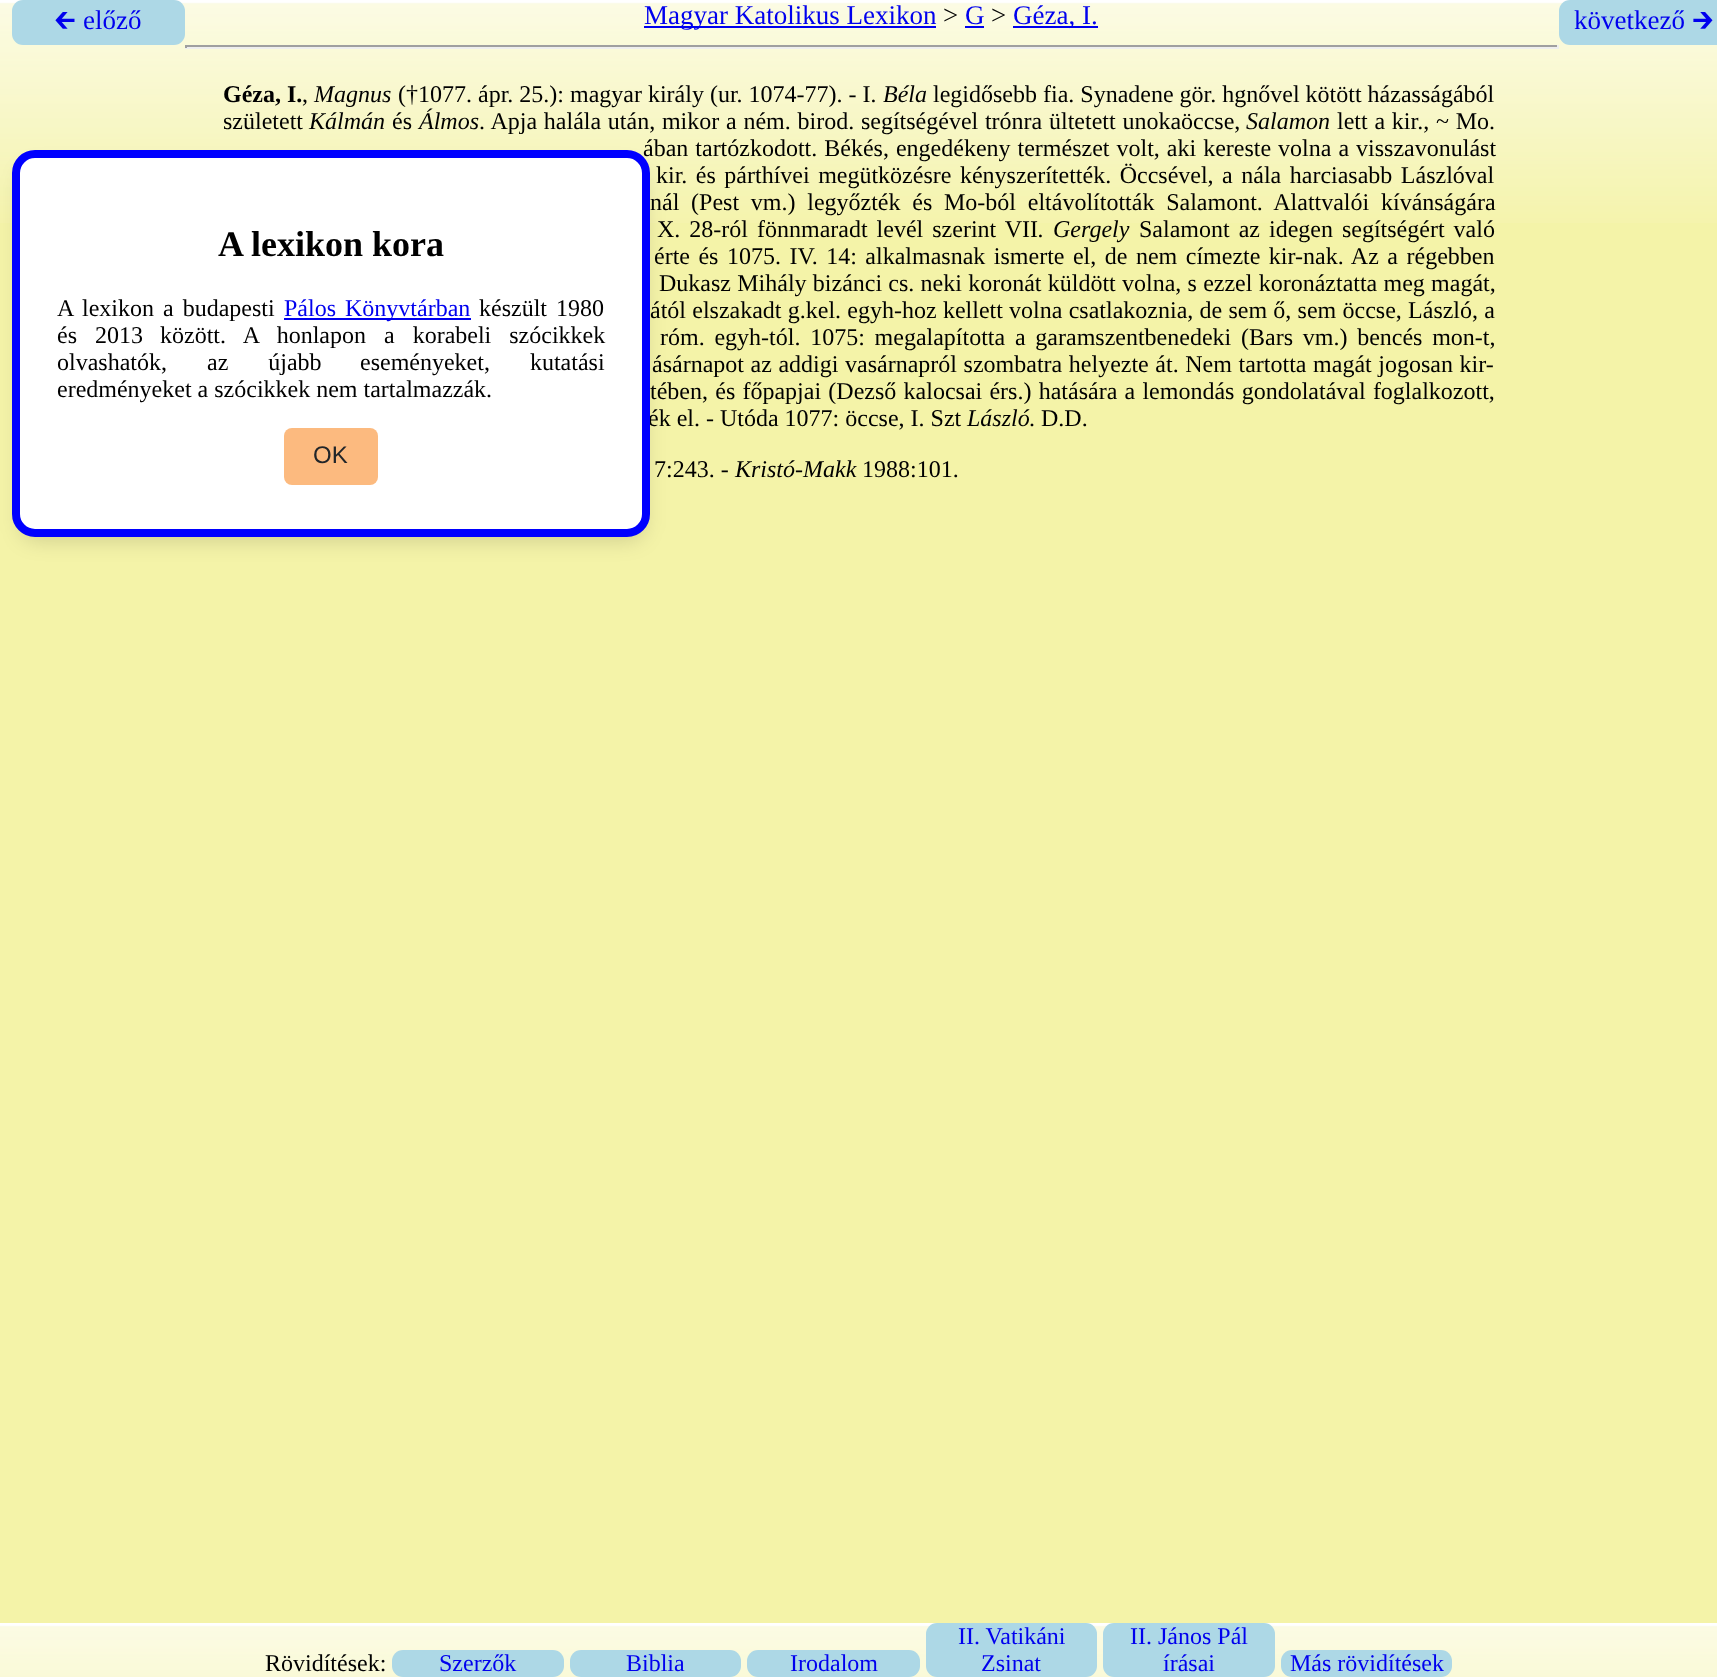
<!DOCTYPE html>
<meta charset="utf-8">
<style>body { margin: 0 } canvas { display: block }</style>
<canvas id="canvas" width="1717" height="1677"></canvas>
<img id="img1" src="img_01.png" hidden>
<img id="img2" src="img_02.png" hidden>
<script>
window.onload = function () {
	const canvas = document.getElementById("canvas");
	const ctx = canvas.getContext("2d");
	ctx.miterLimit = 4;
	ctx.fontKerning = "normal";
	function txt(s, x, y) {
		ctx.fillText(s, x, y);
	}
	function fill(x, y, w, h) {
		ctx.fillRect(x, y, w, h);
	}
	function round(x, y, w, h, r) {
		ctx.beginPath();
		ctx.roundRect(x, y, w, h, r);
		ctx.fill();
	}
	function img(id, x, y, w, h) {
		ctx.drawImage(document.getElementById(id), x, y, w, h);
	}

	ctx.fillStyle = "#F4F3A8";
	fill(0, 0, 1717, 1677);
	img("img1", 0, 0, 1717, 223);
	ctx.fillStyle = "#ADD8E6";
	round(12, 0, 173, 45, 11);
	ctx.fillStyle = "#0000EE";
	fill(644, 26, 292, 2);
	fill(965, 26, 19, 2);
	fill(1013, 26, 85, 2);
	ctx.fillStyle = "#9F9F9F";
	fill(185, 45, 1374, 2);
	ctx.fillStyle = "#EEEEEE";
	fill(1557, 45, 2, 3);
	fill(185, 47, 1374, 2);
	ctx.fillStyle = "#9F9F9F";
	fill(185, 45, 2, 3);
	ctx.fillStyle = "#ADD8E6";
	round(1559, 0, 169, 45, 11);
	ctx.fillStyle = "rgba(0, 0, 0, 0.15)";
	ctx.filter = "blur(10.5px)";
	ctx.beginPath();
	ctx.roundRect(21, 168, 623, 372, 15);
	ctx.fill();
	ctx.filter = "none";
	img("img2", 0, 1623, 1717, 54);
	ctx.fillStyle = "#ADD8E6";
	round(392, 1650, 172, 27, 11);
	round(570, 1650, 171, 27, 11);
	round(747, 1650, 173, 27, 11);
	round(926, 1623, 171, 54, 11);
	round(1103, 1623, 172, 54, 11);
	round(1281, 1650, 171, 27, 11);
	ctx.font = "27px 'Noto Sans Symbols 2'";
	ctx.fillStyle = "#0000EE";
	txt("🡰", 54, 29);
	ctx.font = "27px Liberation Serif";
	txt("előző", 83, 29);
	txt("Magyar Katolikus Lexikon", 644, 24);
	ctx.fillStyle = "#000000";
	txt(">", 943, 24);
	ctx.fillStyle = "#0000EE";
	txt("G", 965, 24);
	ctx.fillStyle = "#000000";
	txt(">", 991, 24);
	ctx.fillStyle = "#0000EE";
	txt("Géza, I.", 1013, 24);
	txt("következő", 1574, 29);
	ctx.font = "27px 'Noto Sans Symbols 2'";
	txt("🡲", 1692, 29);
	ctx.font = "bold 24px Liberation Serif";
	ctx.fillStyle = "#000000";
	txt("Géza, I.", 223, 102);
	ctx.font = "24px Liberation Serif";
	txt(",", 302, 102);
	ctx.font = "italic 24px Liberation Serif";
	txt("Magnus", 314, 102);
	ctx.font = "24px Liberation Serif";
	txt("(†1077. ápr. 25.): magyar király (ur. 1074-77). - I", 398, 102);
	ctx.font = "italic 24px Liberation Serif";
	txt(". Béla", 871, 102);
	ctx.font = "24px Liberation Serif";
	txt("legidősebb fia. Synadene gör. hgnővel kötött házasságából", 933, 102);
	ctx.save();
	ctx.beginPath();
	ctx.rect(224, 57, 1272, 450);
	ctx.clip();
	txt("született", 223, 129);
	ctx.restore();
	ctx.font = "italic 24px Liberation Serif";
	txt("Kálmán", 309, 129);
	ctx.font = "24px Liberation Serif";
	txt("és", 392, 129);
	ctx.font = "italic 24px Liberation Serif";
	txt("Álmos", 419, 129);
	ctx.wordSpacing = "0.75px";
	ctx.font = "24px Liberation Serif";
	txt(". Apja halála után, mikor a ném. birod. segítségével trónra ültetett unokaöccse,", 479, 129);
	ctx.wordSpacing = "0px";
	ctx.font = "italic 24px Liberation Serif";
	txt("Salamon", 1246, 129);
	ctx.wordSpacing = "0.75px";
	ctx.font = "24px Liberation Serif";
	txt("lett a kir., ~ Mo.", 1337, 129);
	ctx.wordSpacing = "1px";
	txt("ában tartózkodott. Békés, engedékeny természet volt, aki kereste volna a visszavonulást", 643, 156);
	ctx.wordSpacing = "2.5px";
	txt("kir. és párthívei megütközésre kényszerítették. Öccsével, a nála harciasabb Lászlóval", 656, 183);
	ctx.wordSpacing = "5.75px";
	txt("nál (Pest vm.) legyőzték és Mo-ból eltávolították Salamont. Alattvalói kívánságára", 650, 210);
	ctx.wordSpacing = "3px";
	txt("X. 28-ról fönnmaradt levél szerint VII", 657, 237);
	ctx.font = "italic 24px Liberation Serif";
	txt(". Gergely", 1038, 237);
	ctx.font = "24px Liberation Serif";
	txt("Salamont az idegen segítségért való", 1139, 237);
	ctx.wordSpacing = "2.5px";
	txt("érte és 1075. IV. 14: alkalmasnak ismerte el, de nem címezte kir-nak. Az a régebben", 654, 264);
	ctx.wordSpacing = "0.25px";
	txt("Dukasz Mihály bizánci cs. neki koronát küldött volna, s ezzel koronáztatta meg magát,", 659, 291);
	txt("ától elszakadt g.kel. egyh-hoz kellett volna csatlakoznia, de sem ő, sem öccse, László, a", 650, 318);
	ctx.wordSpacing = "3.75px";
	txt("róm. egyh-tól. 1075: megalapította a garamszentbenedeki (Bars vm.) bencés mon-t,", 660, 345);
	ctx.wordSpacing = "0.6px";
	txt("ásárnapot az addigi vasárnapról szombatra helyezte át. Nem tartotta magát jogosan kir-", 652, 372);
	ctx.wordSpacing = "1.25px";
	txt("tében, és főpapjai (Dezső kalocsai érs.) hatására a lemondás gondolatával foglalkozott,", 650, 399);
	ctx.wordSpacing = "0px";
	txt("ék el. - Utóda 1077: öccse, I. Szt", 648, 426);
	ctx.font = "italic 24px Liberation Serif";
	txt("László", 967, 426);
	ctx.font = "24px Liberation Serif";
	txt(". D.D.", 1029, 426);
	txt("7:243. -", 654, 477);
	ctx.font = "italic 24px Liberation Serif";
	txt("Kristó-Makk", 735, 477);
	ctx.font = "24px Liberation Serif";
	txt("1988:101.", 862, 477);
	ctx.fillStyle = "#FFFFFF";
	ctx.beginPath();
	ctx.roundRect(16, 154, 630, 379, 19);
	ctx.fill();
	ctx.strokeStyle = "#0000FF";
	ctx.lineWidth = 8;
	ctx.stroke();
	ctx.font = "bold 36px Liberation Serif";
	ctx.fillStyle = "#000000";
	txt("A lexikon kora", 218, 256);
	ctx.wordSpacing = "3px";
	ctx.font = "24px Liberation Serif";
	txt("A lexikon a budapesti", 57, 316);
	ctx.fillStyle = "#0000EE";
	fill(284, 318, 187, 2);
	txt("Pálos Könyvtárban", 284, 316);
	ctx.fillStyle = "#000000";
	txt("készült 1980", 479, 316);
	ctx.wordSpacing = "12px";
	txt("és 2013", 57, 343);
	txt("között. A honlapon a korabeli szócikkek", 160, 343);
	ctx.wordSpacing = "34px";
	txt("olvashatók, az újabb", 57, 370);
	txt("eseményeket, kutatási", 360, 370);
	ctx.wordSpacing = "0px";
	txt("eredményeket a szócikkek nem tartalmazzák.", 57, 397);
	ctx.fillStyle = "#FCBA7F";
	round(284, 428, 94, 57, 8);
	ctx.font = "24px Liberation Sans";
	ctx.fillStyle = "#212529";
	txt("OK", 313, 463);
	ctx.font = "24px Liberation Serif";
	ctx.fillStyle = "#000000";
	txt("Rövidítések:", 265, 1671);
	ctx.fillStyle = "#0000EE";
	txt("Szerzők", 439, 1671);
	txt("Biblia", 626, 1671);
	txt("Irodalom", 790, 1671);
	txt("II. Vatikáni", 958, 1644);
	txt("Zsinat", 981, 1671);
	txt("II. János Pál", 1130, 1644);
	txt("írásai", 1163, 1671);
	txt("Más rövidítések", 1290, 1671);
};
</script>
